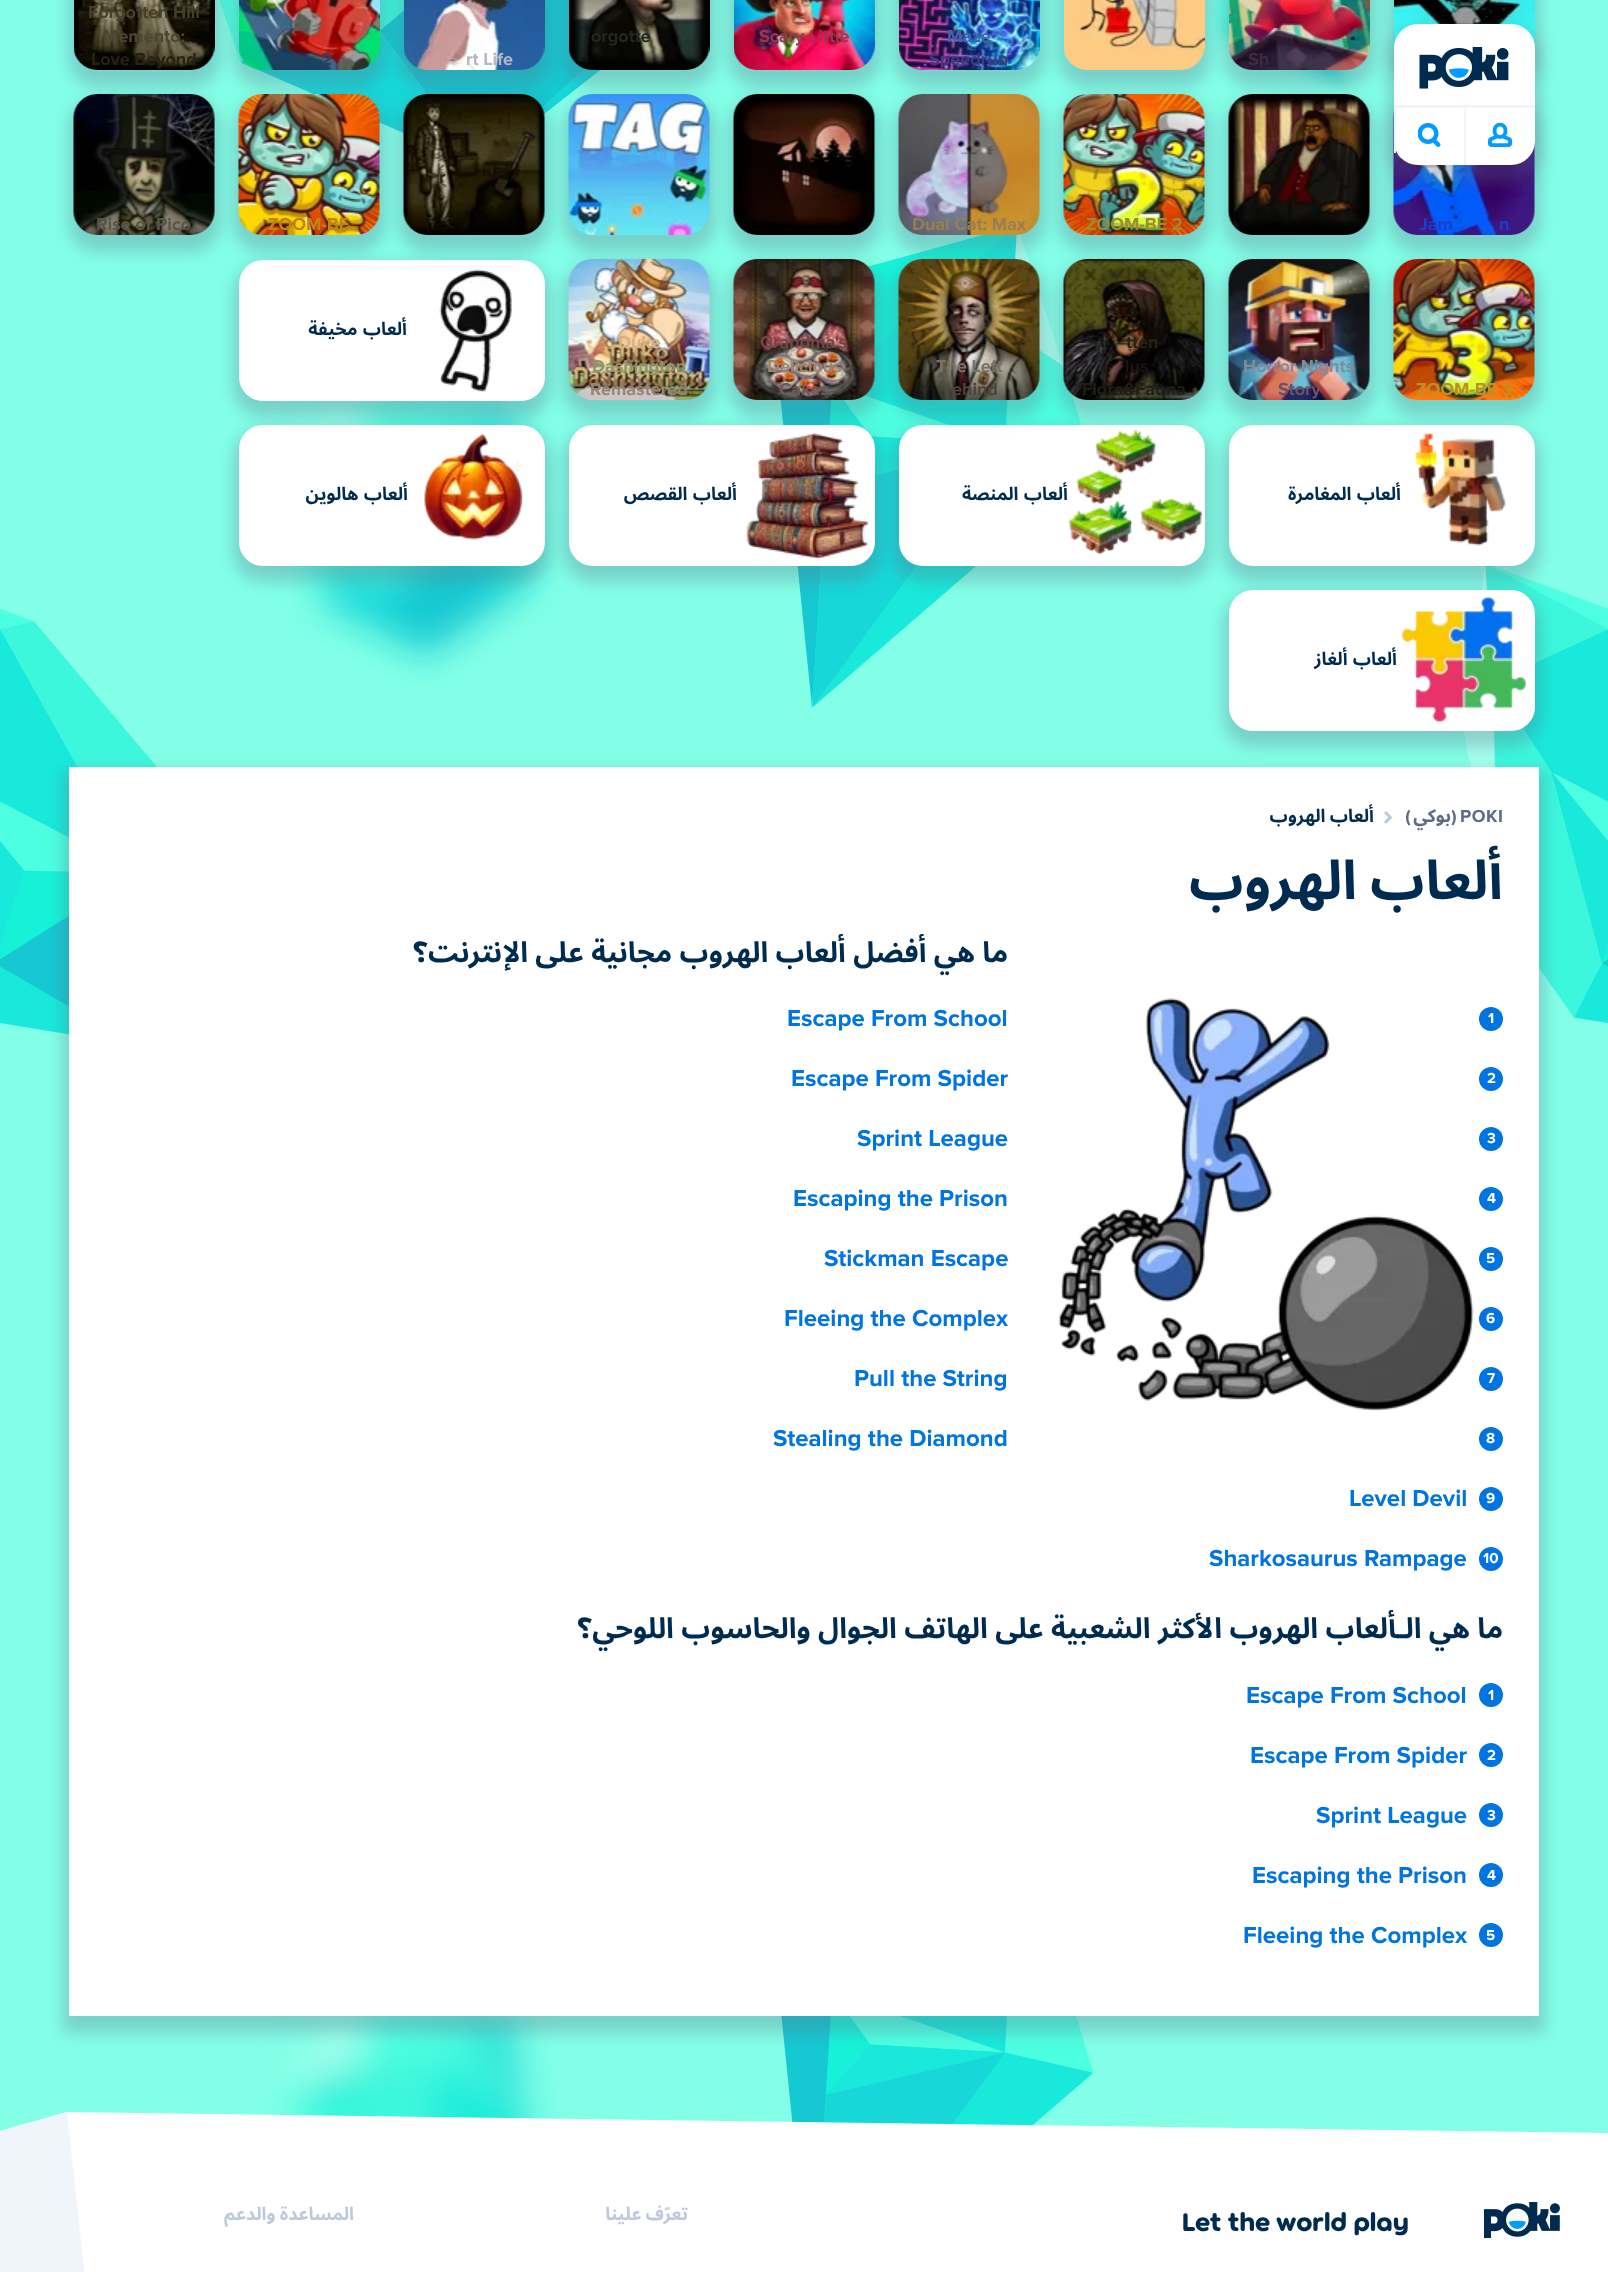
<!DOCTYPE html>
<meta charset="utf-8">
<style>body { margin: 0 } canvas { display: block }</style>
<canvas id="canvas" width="1608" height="2272"></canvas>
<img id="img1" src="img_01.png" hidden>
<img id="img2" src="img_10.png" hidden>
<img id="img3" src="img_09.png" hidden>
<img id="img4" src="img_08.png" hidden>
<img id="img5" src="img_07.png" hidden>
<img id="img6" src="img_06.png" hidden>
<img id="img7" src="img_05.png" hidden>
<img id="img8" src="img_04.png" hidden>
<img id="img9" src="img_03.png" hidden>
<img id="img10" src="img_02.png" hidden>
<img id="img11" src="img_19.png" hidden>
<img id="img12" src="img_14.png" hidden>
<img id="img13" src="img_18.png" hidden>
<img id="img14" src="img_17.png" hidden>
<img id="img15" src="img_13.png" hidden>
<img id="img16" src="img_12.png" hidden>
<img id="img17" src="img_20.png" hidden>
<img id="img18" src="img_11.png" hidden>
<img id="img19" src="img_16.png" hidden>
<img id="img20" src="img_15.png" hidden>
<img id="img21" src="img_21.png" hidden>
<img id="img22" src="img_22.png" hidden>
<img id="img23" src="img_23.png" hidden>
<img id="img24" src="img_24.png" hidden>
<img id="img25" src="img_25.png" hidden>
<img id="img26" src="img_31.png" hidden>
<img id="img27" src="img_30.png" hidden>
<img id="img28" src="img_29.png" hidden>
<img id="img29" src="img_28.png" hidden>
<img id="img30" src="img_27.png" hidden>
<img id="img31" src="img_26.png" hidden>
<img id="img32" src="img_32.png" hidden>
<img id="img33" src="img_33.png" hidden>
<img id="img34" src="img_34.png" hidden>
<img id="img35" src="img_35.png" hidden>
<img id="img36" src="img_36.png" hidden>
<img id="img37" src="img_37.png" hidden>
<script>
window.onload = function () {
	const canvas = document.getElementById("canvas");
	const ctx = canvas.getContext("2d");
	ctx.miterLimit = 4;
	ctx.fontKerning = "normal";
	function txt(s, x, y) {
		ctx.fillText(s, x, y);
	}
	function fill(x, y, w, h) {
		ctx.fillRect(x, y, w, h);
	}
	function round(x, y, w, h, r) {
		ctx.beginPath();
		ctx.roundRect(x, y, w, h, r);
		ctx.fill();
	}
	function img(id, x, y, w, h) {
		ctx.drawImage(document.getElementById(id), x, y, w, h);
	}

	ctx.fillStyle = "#83FFE7";
	fill(0, 0, 1608, 2272);
	img("img1", 0, 0, 1608, 2126);
	ctx.fillStyle = "rgba(93, 107, 132, 0.3)";
	ctx.filter = "blur(7.5px)";
	ctx.beginPath();
	ctx.roundRect(1388, -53, 153, 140, 30);
	ctx.fill();
	ctx.filter = "none";
	img("img2", 1394, 0, 141, 48);
	ctx.filter = "blur(7.5px)";
	ctx.beginPath();
	ctx.roundRect(1223, -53, 153, 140, 30);
	ctx.fill();
	ctx.filter = "none";
	img("img3", 1229, 0, 141, 70);
	ctx.filter = "blur(7.5px)";
	ctx.beginPath();
	ctx.roundRect(1058, -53, 153, 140, 30);
	ctx.fill();
	ctx.filter = "none";
	img("img4", 1064, 0, 141, 70);
	ctx.filter = "blur(7.5px)";
	ctx.beginPath();
	ctx.roundRect(893, -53, 153, 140, 30);
	ctx.fill();
	ctx.filter = "none";
	img("img5", 899, 0, 141, 70);
	ctx.filter = "blur(7.5px)";
	ctx.beginPath();
	ctx.roundRect(728, -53, 153, 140, 30);
	ctx.fill();
	ctx.filter = "none";
	img("img6", 734, 0, 141, 70);
	ctx.filter = "blur(7.5px)";
	ctx.beginPath();
	ctx.roundRect(563, -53, 153, 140, 30);
	ctx.fill();
	ctx.filter = "none";
	img("img7", 569, 0, 141, 70);
	ctx.filter = "blur(7.5px)";
	ctx.beginPath();
	ctx.roundRect(398, -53, 153, 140, 30);
	ctx.fill();
	ctx.filter = "none";
	img("img8", 404, 0, 141, 70);
	ctx.filter = "blur(7.5px)";
	ctx.beginPath();
	ctx.roundRect(233, -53, 153, 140, 30);
	ctx.fill();
	ctx.filter = "none";
	img("img9", 239, 0, 141, 70);
	ctx.filter = "blur(7.5px)";
	ctx.beginPath();
	ctx.roundRect(68, -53, 153, 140, 30);
	ctx.fill();
	ctx.filter = "none";
	img("img10", 74, 0, 141, 70);
	ctx.filter = "blur(7.5px)";
	ctx.beginPath();
	ctx.roundRect(1388, 99, 153, 153, 30);
	ctx.fill();
	ctx.filter = "none";
	img("img11", 1393, 111, 142, 124);
	ctx.filter = "blur(7.5px)";
	ctx.beginPath();
	ctx.roundRect(1223, 99, 153, 153, 30);
	ctx.fill();
	ctx.filter = "none";
	img("img12", 1228, 94, 142, 141);
	ctx.filter = "blur(7.5px)";
	ctx.beginPath();
	ctx.roundRect(1058, 99, 153, 153, 30);
	ctx.fill();
	ctx.filter = "none";
	img("img13", 1063, 94, 142, 141);
	ctx.filter = "blur(7.5px)";
	ctx.beginPath();
	ctx.roundRect(893, 99, 153, 153, 30);
	ctx.fill();
	ctx.filter = "none";
	img("img14", 898, 94, 142, 141);
	ctx.filter = "blur(7.5px)";
	ctx.beginPath();
	ctx.roundRect(728, 99, 153, 153, 30);
	ctx.fill();
	ctx.filter = "none";
	img("img15", 733, 94, 142, 141);
	ctx.filter = "blur(7.5px)";
	ctx.beginPath();
	ctx.roundRect(233, 264, 318, 153, 30);
	ctx.fill();
	ctx.filter = "none";
	ctx.fillStyle = "#FFFFFF";
	round(239, 260, 306, 141, 24);
	ctx.fillStyle = "rgba(93, 107, 132, 0.3)";
	ctx.filter = "blur(7.5px)";
	ctx.beginPath();
	ctx.roundRect(563, 99, 153, 153, 30);
	ctx.fill();
	ctx.filter = "none";
	img("img16", 568, 94, 142, 141);
	img("img17", 439, 269, 73, 123);
	ctx.filter = "blur(7.5px)";
	ctx.beginPath();
	ctx.roundRect(398, 99, 153, 153, 30);
	ctx.fill();
	ctx.filter = "none";
	img("img18", 403, 94, 142, 141);
	ctx.filter = "blur(7.5px)";
	ctx.beginPath();
	ctx.roundRect(233, 99, 153, 153, 30);
	ctx.fill();
	ctx.filter = "none";
	img("img19", 238, 94, 142, 141);
	ctx.filter = "blur(7.5px)";
	ctx.beginPath();
	ctx.roundRect(68, 99, 153, 153, 30);
	ctx.fill();
	ctx.filter = "none";
	img("img20", 73, 94, 142, 141);
	ctx.filter = "blur(7.5px)";
	ctx.beginPath();
	ctx.roundRect(1223, 429, 318, 153, 30);
	ctx.fill();
	ctx.filter = "none";
	ctx.fillStyle = "#FFFFFF";
	round(1229, 425, 306, 141, 24);
	ctx.fillStyle = "rgba(93, 107, 132, 0.3)";
	ctx.filter = "blur(7.5px)";
	ctx.beginPath();
	ctx.roundRect(893, 429, 318, 153, 30);
	ctx.fill();
	ctx.filter = "none";
	ctx.fillStyle = "#FFFFFF";
	round(899, 425, 306, 141, 24);
	ctx.fillStyle = "rgba(93, 107, 132, 0.3)";
	ctx.filter = "blur(7.5px)";
	ctx.beginPath();
	ctx.roundRect(563, 429, 318, 153, 30);
	ctx.fill();
	ctx.filter = "none";
	ctx.fillStyle = "#FFFFFF";
	round(569, 425, 306, 141, 24);
	ctx.fillStyle = "rgba(93, 107, 132, 0.3)";
	ctx.filter = "blur(7.5px)";
	ctx.beginPath();
	ctx.roundRect(233, 429, 318, 153, 30);
	ctx.fill();
	ctx.filter = "none";
	ctx.fillStyle = "#FFFFFF";
	round(239, 425, 306, 141, 24);
	img("img21", 424, 434, 99, 106);
	img("img22", 746, 432, 123, 128);
	img("img23", 1069, 429, 134, 126);
	img("img24", 1414, 432, 93, 114);
	ctx.fillStyle = "rgba(93, 107, 132, 0.3)";
	ctx.filter = "blur(7.5px)";
	ctx.beginPath();
	ctx.roundRect(1223, 594, 318, 153, 30);
	ctx.fill();
	ctx.filter = "none";
	ctx.fillStyle = "#FFFFFF";
	round(1229, 590, 306, 141, 24);
	img("img25", 1400, 596, 127, 127);
	ctx.fillStyle = "rgba(93, 107, 132, 0.3)";
	ctx.filter = "blur(7.5px)";
	ctx.beginPath();
	ctx.roundRect(1388, 264, 153, 153, 30);
	ctx.fill();
	ctx.filter = "none";
	img("img26", 1393, 259, 142, 141);
	ctx.filter = "blur(7.5px)";
	ctx.beginPath();
	ctx.roundRect(1223, 264, 153, 153, 30);
	ctx.fill();
	ctx.filter = "none";
	img("img27", 1228, 259, 142, 141);
	ctx.filter = "blur(7.5px)";
	ctx.beginPath();
	ctx.roundRect(1058, 264, 153, 153, 30);
	ctx.fill();
	ctx.filter = "none";
	img("img28", 1063, 259, 142, 141);
	ctx.filter = "blur(7.5px)";
	ctx.beginPath();
	ctx.roundRect(893, 264, 153, 153, 30);
	ctx.fill();
	ctx.filter = "none";
	img("img29", 898, 259, 142, 141);
	ctx.filter = "blur(7.5px)";
	ctx.beginPath();
	ctx.roundRect(728, 264, 153, 153, 30);
	ctx.fill();
	ctx.filter = "none";
	img("img30", 733, 259, 142, 141);
	ctx.filter = "blur(7.5px)";
	ctx.beginPath();
	ctx.roundRect(563, 264, 153, 153, 30);
	ctx.fill();
	ctx.filter = "none";
	img("img31", 568, 259, 142, 141);
	ctx.filter = "blur(7.5px)";
	ctx.beginPath();
	ctx.rect(63, 771, 1482, 1262);
	ctx.fill();
	ctx.filter = "none";
	ctx.fillStyle = "#FFFFFF";
	fill(69, 767, 1470, 1249);
	img("img32", 1384, 811, 8, 13);
	img("img33", 1058, 998, 416, 413);
	ctx.fillStyle = "#0074E0";
	ctx.beginPath();
	ctx.arc(1491, 1019, 12, 0, Math.PI * 2);
	ctx.fill();
	ctx.beginPath();
	ctx.arc(1491, 1079, 12, 0, Math.PI * 2);
	ctx.fill();
	ctx.beginPath();
	ctx.arc(1491, 1139, 12, 0, Math.PI * 2);
	ctx.fill();
	ctx.beginPath();
	ctx.arc(1491, 1199, 12, 0, Math.PI * 2);
	ctx.fill();
	ctx.beginPath();
	ctx.arc(1491, 1259, 12, 0, Math.PI * 2);
	ctx.fill();
	ctx.beginPath();
	ctx.arc(1491, 1319, 12, 0, Math.PI * 2);
	ctx.fill();
	ctx.beginPath();
	ctx.arc(1491, 1379, 12, 0, Math.PI * 2);
	ctx.fill();
	ctx.beginPath();
	ctx.arc(1491, 1439, 12, 0, Math.PI * 2);
	ctx.fill();
	ctx.beginPath();
	ctx.arc(1491, 1499, 12, 0, Math.PI * 2);
	ctx.fill();
	ctx.beginPath();
	ctx.arc(1491, 1559, 12, 0, Math.PI * 2);
	ctx.fill();
	ctx.beginPath();
	ctx.arc(1491, 1695, 12, 0, Math.PI * 2);
	ctx.fill();
	ctx.beginPath();
	ctx.arc(1491, 1755, 12, 0, Math.PI * 2);
	ctx.fill();
	ctx.beginPath();
	ctx.arc(1491, 1815, 12, 0, Math.PI * 2);
	ctx.fill();
	ctx.beginPath();
	ctx.arc(1491, 1875, 12, 0, Math.PI * 2);
	ctx.fill();
	ctx.beginPath();
	ctx.arc(1491, 1935, 12, 0, Math.PI * 2);
	ctx.fill();
	ctx.fillStyle = "rgba(93, 107, 132, 0.3)";
	ctx.filter = "blur(7.5px)";
	ctx.beginPath();
	ctx.roundRect(1388, 29, 153, 153, 30);
	ctx.fill();
	ctx.filter = "none";
	ctx.fillStyle = "#FFFFFF";
	round(1394, 24, 141, 141, 24);
	img("img34", 1419, 47, 90, 42);
	ctx.fillStyle = "#F0F5FC";
	fill(1394, 105, 141, 3);
	fill(1394, 108, 2, 45);
	img("img35", 1418, 123, 23, 24);
	fill(1464, 108, 2, 57);
	img("img36", 1488, 122, 24, 25);
	ctx.fillStyle = "#FFFFFF";
	ctx.beginPath();
	ctx.moveTo(0, 2131);
	ctx.lineTo(0, 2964);
	ctx.lineTo(1608, 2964);
	ctx.lineTo(1608, 2133);
	ctx.lineTo(67, 2112);
	ctx.closePath();
	ctx.fill();
	ctx.fillStyle = "#F0F5FC";
	ctx.beginPath();
	ctx.moveTo(0, 2131);
	ctx.lineTo(0, 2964);
	ctx.lineTo(159, 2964);
	ctx.lineTo(67, 2112);
	ctx.closePath();
	ctx.fill();
	img("img37", 1484, 2202, 76, 36);
	ctx.font = "bold 18px Proxima Nova";
	ctx.fillStyle = "#453F2B";
	txt("Forgotten Hill", 88, 18);
	ctx.fillStyle = "#4D4731";
	txt("Memento:", 103, 42);
	ctx.fillStyle = "#272314";
	txt("Love Beyond", 91, 65);
	ctx.fillStyle = "#2F415C";
	txt("2", 321, 65);
	ctx.fillStyle = "#B8B5C4";
	txt("rt Life", 466, 65);
	ctx.fillStyle = "#242720";
	txt("orgotte", 591, 42);
	ctx.fillStyle = "#9D3551";
	txt("Scary Little", 759, 42);
	ctx.fillStyle = "#4163A7";
	txt("Maze", 947, 42);
	ctx.fillStyle = "#3F3B82";
	txt("Speedrun", 929, 65);
	ctx.fillStyle = "#3E2B42";
	txt("Sh", 1248, 65);
	ctx.fillStyle = "#272314";
	txt("r", 439, 183);
	ctx.fillStyle = "#595546";
	txt("Rise of Pico", 96, 230);
	ctx.fillStyle = "#C28311";
	txt("ZOOM-BE", 268, 230);
	ctx.fillStyle = "#977E53";
	txt("Dual Cat: Max", 912, 230);
	ctx.fillStyle = "#9D8B2E";
	txt("ZOOM-BE 2", 1086, 230);
	ctx.fillStyle = "#1A3EC7";
	txt("Jam", 1419, 230);
	txt("n", 1499, 230);
	ctx.letterSpacing = "1.5px";
	ctx.wordSpacing = "-1px";
	ctx.direction = "rtl";
	ctx.font = "bold 18px Noto Sans Arabic";
	ctx.fillStyle = "#002B50";
	txt("ألعاب مخيفة", 407, 335);
	txt("ألعاب هالوين", 408, 500);
	txt("ألعاب القصص", 737, 500);
	txt("ألعاب المنصة", 1068, 500);
	txt("ألعاب المغامرة", 1401, 500);
	txt("ألعاب ألغاز", 1397, 665);
	ctx.letterSpacing = "0px";
	ctx.wordSpacing = "0px";
	ctx.direction = "ltr";
	ctx.font = "bold 18px Proxima Nova";
	ctx.fillStyle = "#D3B287";
	txt("Duke", 618, 348);
	ctx.fillStyle = "#97916A";
	txt("Dashington", 592, 372);
	ctx.fillStyle = "#928777";
	txt("Remastered", 590, 395);
	ctx.fillStyle = "#724747";
	txt("Grandma's", 760, 348);
	ctx.fillStyle = "#9C8574";
	txt("Delicious", 767, 372);
	ctx.fillStyle = "#6F5B56";
	txt("Cakes", 779, 395);
	ctx.fillStyle = "#797167";
	txt("The Left", 936, 372);
	ctx.fillStyle = "#4B453D";
	txt("ehind", 952, 395);
	ctx.fillStyle = "#272314";
	txt("tten", 1126, 348);
	ctx.fillStyle = "#1B1514";
	txt("lus", 1125, 372);
	ctx.fillStyle = "#1F1F16";
	txt("Flora&Fauna", 1082, 395);
	ctx.fillStyle = "#818D9A";
	txt("Horror Nights", 1243, 372);
	ctx.fillStyle = "#695168";
	txt("Story", 1278, 395);
	ctx.fillStyle = "#BE9024";
	txt("ZOOM-BE 3", 1416, 395);
	ctx.letterSpacing = "0.5px";
	ctx.wordSpacing = "-1px";
	ctx.direction = "rtl";
	ctx.font = "bold 18px Noto Sans Arabic";
	ctx.fillStyle = "#002B50";
	txt("ألعاب الهروب", 1374, 822);
	ctx.wordSpacing = "0px";
	ctx.font = "bold 18px Proxima Nova";
	ctx.fillStyle = "#5D6B84";
	txt(")", 1411, 822);
	ctx.font = "bold 18px Noto Sans Arabic";
	txt("بوكي", 1451, 822);
	ctx.font = "bold 18px Proxima Nova";
	txt("(", 1457, 822);
	ctx.direction = "ltr";
	txt("POKI", 1460, 822);
	ctx.letterSpacing = "0px";
	ctx.wordSpacing = "-1px";
	ctx.direction = "rtl";
	ctx.font = "bold 54px Noto Sans Arabic";
	ctx.fillStyle = "#002B50";
	txt("ألعاب الهروب", 1503, 899);
	ctx.wordSpacing = "0px";
	ctx.font = "bold 28.5px Noto Sans Arabic";
	txt("ما هي أفضل ألعاب الهروب مجانية على الإنترنت؟", 1008, 962);
	ctx.direction = "ltr";
	ctx.font = "bold 24px Proxima Nova";
	ctx.fillStyle = "#0074E0";
	txt("Escape From School", 787, 1026);
	ctx.font = "bold 15px Proxima Nova";
	ctx.fillStyle = "#FFFFFF";
	txt("1", 1488, 1023);
	ctx.font = "bold 24px Proxima Nova";
	ctx.fillStyle = "#0074E0";
	txt("Escape From Spider", 791, 1086);
	ctx.font = "bold 15px Proxima Nova";
	ctx.fillStyle = "#FFFFFF";
	txt("2", 1487, 1083);
	ctx.font = "bold 24px Proxima Nova";
	ctx.fillStyle = "#0074E0";
	txt("Sprint League", 857, 1146);
	ctx.font = "bold 15px Proxima Nova";
	ctx.fillStyle = "#FFFFFF";
	txt("3", 1487, 1143);
	ctx.font = "bold 24px Proxima Nova";
	ctx.fillStyle = "#0074E0";
	txt("Escaping the Prison", 793, 1206);
	ctx.font = "bold 15px Proxima Nova";
	ctx.fillStyle = "#FFFFFF";
	txt("4", 1487, 1203);
	ctx.font = "bold 24px Proxima Nova";
	ctx.fillStyle = "#0074E0";
	txt("Stickman Escape", 824, 1266);
	ctx.font = "bold 15px Proxima Nova";
	ctx.fillStyle = "#FFFFFF";
	txt("5", 1486, 1263);
	ctx.font = "bold 24px Proxima Nova";
	ctx.fillStyle = "#0074E0";
	txt("Fleeing the Complex", 784, 1326);
	ctx.font = "bold 15px Proxima Nova";
	ctx.fillStyle = "#FFFFFF";
	txt("6", 1486, 1323);
	ctx.font = "bold 24px Proxima Nova";
	ctx.fillStyle = "#0074E0";
	txt("Pull the String", 854, 1386);
	ctx.font = "bold 15px Proxima Nova";
	ctx.fillStyle = "#FFFFFF";
	txt("7", 1487, 1383);
	ctx.font = "bold 24px Proxima Nova";
	ctx.fillStyle = "#0074E0";
	txt("Stealing the Diamond", 773, 1446);
	ctx.font = "bold 15px Proxima Nova";
	ctx.fillStyle = "#FFFFFF";
	txt("8", 1486, 1443);
	ctx.font = "bold 24px Proxima Nova";
	ctx.fillStyle = "#0074E0";
	txt("Level Devil", 1349, 1506);
	ctx.font = "bold 15px Proxima Nova";
	ctx.fillStyle = "#FFFFFF";
	txt("9", 1486, 1503);
	ctx.font = "bold 24px Proxima Nova";
	ctx.fillStyle = "#0074E0";
	txt("Sharkosaurus Rampage", 1209, 1566);
	ctx.font = "bold 15px Proxima Nova";
	ctx.fillStyle = "#FFFFFF";
	txt("10", 1483, 1563);
	ctx.direction = "rtl";
	ctx.font = "bold 28.5px Noto Sans Arabic";
	ctx.fillStyle = "#002B50";
	txt("ما هي الـألعاب الهروب الأكثر الشعبية على الهاتف الجوال والحاسوب اللوحي؟", 1503, 1638);
	ctx.direction = "ltr";
	ctx.font = "bold 24px Proxima Nova";
	ctx.fillStyle = "#0074E0";
	txt("Escape From School", 1246, 1703);
	ctx.font = "bold 15px Proxima Nova";
	ctx.fillStyle = "#FFFFFF";
	txt("1", 1488, 1700);
	ctx.font = "bold 24px Proxima Nova";
	ctx.fillStyle = "#0074E0";
	txt("Escape From Spider", 1250, 1763);
	ctx.font = "bold 15px Proxima Nova";
	ctx.fillStyle = "#FFFFFF";
	txt("2", 1487, 1760);
	ctx.font = "bold 24px Proxima Nova";
	ctx.fillStyle = "#0074E0";
	txt("Sprint League", 1316, 1823);
	ctx.font = "bold 15px Proxima Nova";
	ctx.fillStyle = "#FFFFFF";
	txt("3", 1487, 1820);
	ctx.font = "bold 24px Proxima Nova";
	ctx.fillStyle = "#0074E0";
	txt("Escaping the Prison", 1252, 1883);
	ctx.font = "bold 15px Proxima Nova";
	ctx.fillStyle = "#FFFFFF";
	txt("4", 1487, 1880);
	ctx.font = "bold 24px Proxima Nova";
	ctx.fillStyle = "#0074E0";
	txt("Fleeing the Complex", 1243, 1943);
	ctx.font = "bold 15px Proxima Nova";
	ctx.fillStyle = "#FFFFFF";
	txt("5", 1486, 1940);
	ctx.letterSpacing = "0.5px";
	ctx.wordSpacing = "-1px";
	ctx.direction = "rtl";
	ctx.font = "bold 18px Noto Sans Arabic";
	ctx.fillStyle = "#BAC9DE";
	txt("المساعدة والدعم", 354, 2220);
	txt("تعرّف علينا", 688, 2220);
	ctx.letterSpacing = "0px";
	ctx.wordSpacing = "0px";
	ctx.direction = "ltr";
	ctx.font = "bold 27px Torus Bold";
	ctx.fillStyle = "#002B50";
	txt("Let the world play", 1182, 2231);
};
</script>
